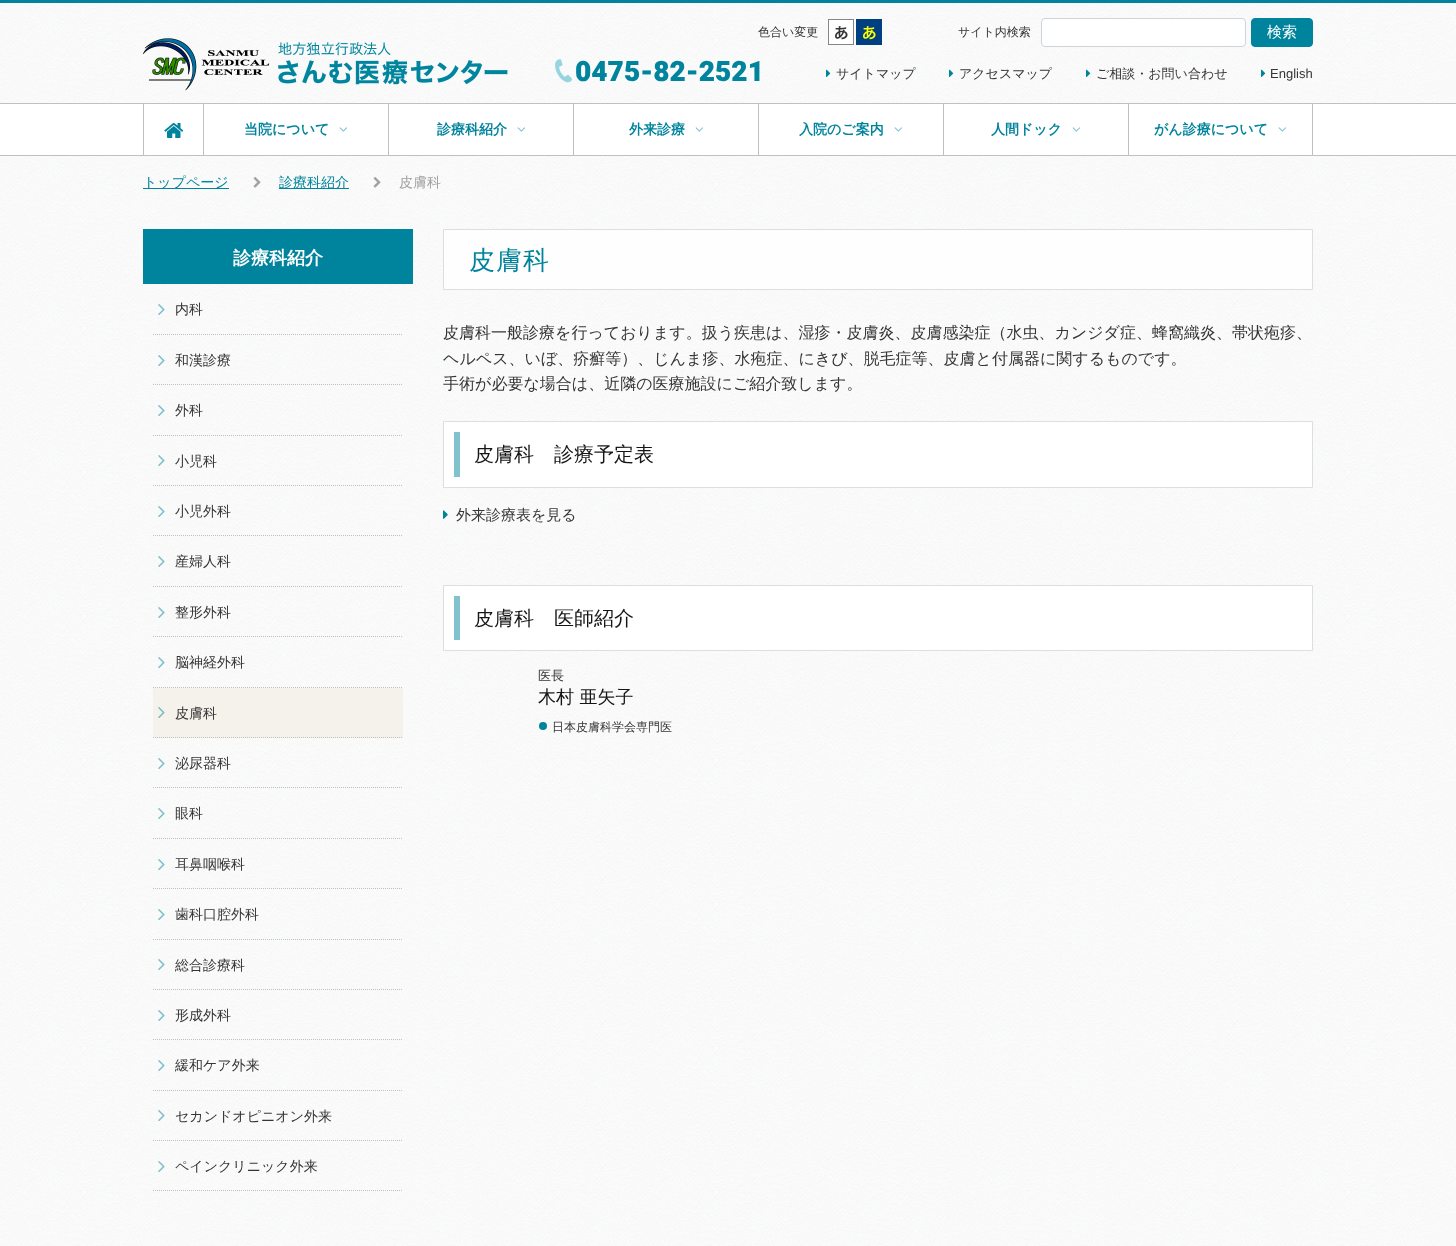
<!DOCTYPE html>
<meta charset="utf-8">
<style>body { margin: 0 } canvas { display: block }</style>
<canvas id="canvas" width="1456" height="1246"></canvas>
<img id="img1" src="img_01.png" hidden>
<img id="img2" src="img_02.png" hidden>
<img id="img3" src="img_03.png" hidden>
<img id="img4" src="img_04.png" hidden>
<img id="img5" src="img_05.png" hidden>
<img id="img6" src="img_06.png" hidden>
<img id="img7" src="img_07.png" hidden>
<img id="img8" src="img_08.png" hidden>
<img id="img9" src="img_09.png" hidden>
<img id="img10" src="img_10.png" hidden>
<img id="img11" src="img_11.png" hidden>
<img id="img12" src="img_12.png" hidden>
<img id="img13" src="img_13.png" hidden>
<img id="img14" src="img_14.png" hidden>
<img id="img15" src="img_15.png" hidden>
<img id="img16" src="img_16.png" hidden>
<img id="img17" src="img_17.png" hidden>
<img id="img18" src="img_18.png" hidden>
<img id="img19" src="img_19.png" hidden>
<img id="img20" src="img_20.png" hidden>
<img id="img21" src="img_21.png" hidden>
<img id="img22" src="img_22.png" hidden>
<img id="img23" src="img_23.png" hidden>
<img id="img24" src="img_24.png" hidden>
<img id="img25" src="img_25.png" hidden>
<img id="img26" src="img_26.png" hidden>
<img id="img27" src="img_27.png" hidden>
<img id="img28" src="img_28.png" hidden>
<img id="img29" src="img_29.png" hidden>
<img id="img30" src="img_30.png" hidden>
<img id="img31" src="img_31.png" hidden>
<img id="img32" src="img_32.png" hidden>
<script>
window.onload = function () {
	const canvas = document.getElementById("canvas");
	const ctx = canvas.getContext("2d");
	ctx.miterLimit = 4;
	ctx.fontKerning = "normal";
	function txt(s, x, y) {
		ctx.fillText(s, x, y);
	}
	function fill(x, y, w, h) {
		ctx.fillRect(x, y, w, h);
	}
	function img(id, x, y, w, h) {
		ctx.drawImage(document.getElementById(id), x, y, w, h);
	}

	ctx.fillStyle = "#FFFFFF";
	fill(0, 0, 1456, 1246);
	img("img1", 0, 3, 1456, 1243);
	ctx.fillStyle = "#00849D";
	fill(0, 0, 1456, 3);
	img("img2", 828, 19, 26, 26);
	img("img3", 856, 19, 26, 26);
	ctx.fillStyle = "#FFFFFF";
	ctx.beginPath();
	ctx.roundRect(1041.5, 18.5, 204, 28, 3.5);
	ctx.fill();
	ctx.strokeStyle = "#CED4DA";
	ctx.stroke();
	ctx.fillStyle = "#00849D";
	ctx.beginPath();
	ctx.roundRect(1251.5, 18.5, 61, 28, 3.5);
	ctx.fill();
	ctx.strokeStyle = "#00849D";
	ctx.stroke();
	img("img4", 143, 38, 365, 53);
	img("img5", 555, 59, 18, 24);
	img("img6", 826, 69, 5, 8);
	img("img7", 949, 69, 5, 8);
	img("img8", 1086, 69, 5, 8);
	img("img9", 1261, 69, 5, 8);
	ctx.fillStyle = "#FFFFFF";
	fill(0, 104, 1456, 51);
	ctx.fillStyle = "#C0C0C0";
	fill(0, 103, 1456, 1);
	fill(0, 155, 1456, 1);
	fill(143, 104, 1, 51);
	img("img10", 164, 123, 20, 15);
	fill(203, 104, 1, 51);
	img("img11", 339, 127, 8, 5);
	fill(388, 104, 1, 51);
	img("img11", 517, 127, 8, 5);
	fill(573, 104, 1, 51);
	img("img11", 695, 127, 8, 5);
	fill(758, 104, 1, 51);
	img("img11", 894, 127, 8, 5);
	fill(943, 104, 1, 51);
	img("img11", 1072, 127, 8, 5);
	fill(1312, 104, 1, 51);
	fill(1128, 104, 1, 51);
	img("img11", 1278, 127, 8, 5);
	ctx.fillStyle = "#00849D";
	fill(143, 188, 86, 1);
	img("img12", 253, 177, 8, 11);
	fill(279, 188, 70, 1);
	img("img13", 373, 177, 8, 11);
	fill(143, 229, 270, 55);
	ctx.beginPath();
	ctx.moveTo(153, 334.5);
	ctx.lineTo(403, 334.5);
	ctx.strokeStyle = "#C0C0C0";
	ctx.setLineDash([1, 1]);
	ctx.stroke();
	img("img14", 158, 304, 7, 11);
	ctx.beginPath();
	ctx.moveTo(153, 384.5);
	ctx.lineTo(403, 384.5);
	ctx.stroke();
	img("img15", 158, 355, 7, 11);
	ctx.beginPath();
	ctx.moveTo(153, 435.5);
	ctx.lineTo(403, 435.5);
	ctx.stroke();
	img("img16", 158, 405, 7, 11);
	ctx.beginPath();
	ctx.moveTo(153, 485.5);
	ctx.lineTo(403, 485.5);
	ctx.stroke();
	img("img17", 158, 455, 7, 11);
	ctx.beginPath();
	ctx.moveTo(153, 535.5);
	ctx.lineTo(403, 535.5);
	ctx.stroke();
	img("img18", 158, 506, 7, 11);
	ctx.beginPath();
	ctx.moveTo(153, 586.5);
	ctx.lineTo(403, 586.5);
	ctx.stroke();
	img("img19", 158, 556, 7, 11);
	ctx.beginPath();
	ctx.moveTo(153, 636.5);
	ctx.lineTo(403, 636.5);
	ctx.stroke();
	img("img20", 158, 607, 7, 11);
	ctx.beginPath();
	ctx.moveTo(153, 687.5);
	ctx.lineTo(403, 687.5);
	ctx.stroke();
	img("img21", 158, 657, 7, 11);
	ctx.fillStyle = "#F5F2EB";
	fill(153, 688, 250, 50);
	ctx.beginPath();
	ctx.moveTo(153, 737.5);
	ctx.lineTo(403, 737.5);
	ctx.stroke();
	img("img22", 158, 707, 7, 11);
	ctx.beginPath();
	ctx.moveTo(153, 787.5);
	ctx.lineTo(403, 787.5);
	ctx.stroke();
	img("img23", 158, 758, 7, 11);
	ctx.beginPath();
	ctx.moveTo(153, 838.5);
	ctx.lineTo(403, 838.5);
	ctx.stroke();
	img("img24", 158, 808, 7, 11);
	ctx.beginPath();
	ctx.moveTo(153, 888.5);
	ctx.lineTo(403, 888.5);
	ctx.stroke();
	img("img25", 158, 859, 7, 11);
	ctx.beginPath();
	ctx.moveTo(153, 939.5);
	ctx.lineTo(403, 939.5);
	ctx.stroke();
	img("img26", 158, 909, 7, 11);
	ctx.beginPath();
	ctx.moveTo(153, 989.5);
	ctx.lineTo(403, 989.5);
	ctx.stroke();
	img("img27", 158, 959, 7, 11);
	ctx.beginPath();
	ctx.moveTo(153, 1039.5);
	ctx.lineTo(403, 1039.5);
	ctx.stroke();
	img("img28", 158, 1010, 7, 11);
	ctx.beginPath();
	ctx.moveTo(153, 1090.5);
	ctx.lineTo(403, 1090.5);
	ctx.stroke();
	img("img29", 158, 1060, 7, 11);
	ctx.beginPath();
	ctx.moveTo(153, 1140.5);
	ctx.lineTo(403, 1140.5);
	ctx.stroke();
	img("img30", 158, 1110, 7, 11);
	ctx.beginPath();
	ctx.moveTo(153, 1190.5);
	ctx.lineTo(403, 1190.5);
	ctx.stroke();
	img("img31", 158, 1161, 7, 11);
	ctx.fillStyle = "rgba(255, 255, 255, 0.75)";
	ctx.beginPath();
	ctx.rect(443.5, 229.5, 869, 60);
	ctx.fill();
	ctx.strokeStyle = "#DEDEDE";
	ctx.setLineDash([]);
	ctx.stroke();
	ctx.fillStyle = "#FFFFFF";
	ctx.beginPath();
	ctx.rect(443.5, 421.5, 869, 66);
	ctx.fill();
	ctx.stroke();
	ctx.fillStyle = "#80C2CE";
	fill(454, 432, 6, 45);
	img("img32", 443, 510, 5, 9);
	ctx.fillStyle = "#FFFFFF";
	ctx.beginPath();
	ctx.rect(443.5, 585.5, 869, 65);
	ctx.fill();
	ctx.stroke();
	ctx.fillStyle = "#80C2CE";
	fill(454, 596, 6, 44);
	ctx.fillStyle = "#00849D";
	ctx.beginPath();
	ctx.arc(543, 726, 4, 0, Math.PI * 2);
	ctx.fill();
	ctx.font = "500 12px WenQuanYi Zen Hei";
	ctx.fillStyle = "#353535";
	txt("色合い変更", 758, 36);
	txt("サイト内検索", 958, 36);
	ctx.font = "500 15px WenQuanYi Zen Hei";
	ctx.fillStyle = "#FFFFFF";
	txt("検索", 1267, 37);
	ctx.font = "900 28px Heebo";
	ctx.fillStyle = "#00849D";
	txt("0475-82-2521", 575, 81);
	ctx.font = "500 13px WenQuanYi Zen Hei";
	ctx.fillStyle = "#353535";
	txt("サイトマップ", 836, 78);
	txt("アクセスマップ", 959, 78);
	txt("ご相談・お問い合わせ", 1096, 78);
	ctx.font = "13px Liberation Sans";
	txt("English", 1270, 78);
	ctx.font = "bold 14px WenQuanYi Zen Hei";
	ctx.fillStyle = "#00849D";
	txt("当院について", 244, 134);
	txt("診療科紹介", 437, 134);
	txt("外来診療", 629, 134);
	txt("入院のご案内", 799, 134);
	txt("人間ドック", 991, 134);
	txt("がん診療について", 1154, 134);
	ctx.font = "500 14px WenQuanYi Zen Hei";
	txt("トップページ", 143, 187);
	txt("診療科紹介", 279, 187);
	ctx.fillStyle = "#A1A1A1";
	txt("皮膚科", 399, 187);
	ctx.font = "bold 18px WenQuanYi Zen Hei";
	ctx.fillStyle = "#FFFFFF";
	txt("診療科紹介", 233, 264);
	ctx.font = "500 14px WenQuanYi Zen Hei";
	ctx.fillStyle = "#353535";
	txt("内科", 175, 314);
	txt("和漢診療", 175, 365);
	txt("外科", 175, 415);
	txt("小児科", 175, 466);
	txt("小児外科", 175, 516);
	txt("産婦人科", 175, 566);
	txt("整形外科", 175, 617);
	txt("脳神経外科", 175, 667);
	txt("皮膚科", 175, 718);
	txt("泌尿器科", 175, 768);
	txt("眼科", 175, 818);
	txt("耳鼻咽喉科", 175, 869);
	txt("歯科口腔外科", 175, 919);
	txt("総合診療科", 175, 970);
	txt("形成外科", 175, 1020);
	txt("緩和ケア外来", 175, 1070);
	txt("セカンドオピニオン外来", 175, 1121);
	txt("ペインクリニック外来", 175, 1171);
	ctx.letterSpacing = "1px";
	ctx.font = "500 26px WenQuanYi Zen Hei";
	ctx.fillStyle = "#00849D";
	txt("皮膚科", 469, 269);
	ctx.letterSpacing = "0px";
	ctx.font = "500 16px WenQuanYi Zen Hei";
	ctx.fillStyle = "#353535";
	txt("皮膚科一般診療を行っております。扱う疾患は、湿疹・皮膚炎、皮膚感染症（水虫、カンジダ症、蜂窩織炎、帯状疱疹、", 443, 338);
	txt("ヘルペス、いぼ、疥癬等）、じんま疹、水疱症、にきび、脱毛症等、皮膚と付属器に関するものです。", 443, 364);
	txt("手術が必要な場合は、近隣の医療施設にご紹介致します。", 443, 389);
	ctx.font = "500 20px WenQuanYi Zen Hei";
	ctx.fillStyle = "#151515";
	txt("皮膚科　診療予定表", 474, 461);
	ctx.font = "500 15px WenQuanYi Zen Hei";
	ctx.fillStyle = "#353535";
	txt("外来診療表を見る", 456, 520);
	ctx.font = "500 20px WenQuanYi Zen Hei";
	ctx.fillStyle = "#151515";
	txt("皮膚科　医師紹介", 474, 625);
	ctx.font = "500 13px WenQuanYi Zen Hei";
	ctx.fillStyle = "#353535";
	txt("医長", 538, 680);
	ctx.font = "500 18px WenQuanYi Zen Hei";
	ctx.fillStyle = "#151515";
	txt("木村 亜矢子", 538, 703);
	ctx.font = "500 12px WenQuanYi Zen Hei";
	ctx.fillStyle = "#353535";
	txt("日本皮膚科学会専門医", 552, 731);
};
</script>
